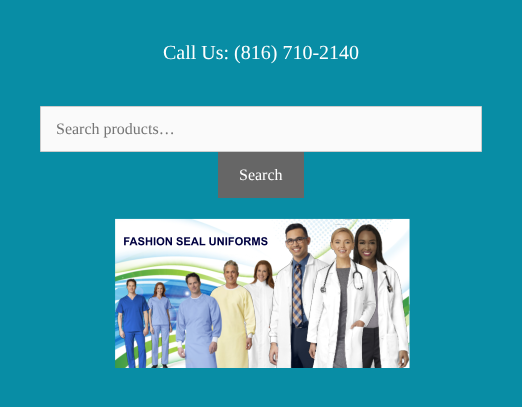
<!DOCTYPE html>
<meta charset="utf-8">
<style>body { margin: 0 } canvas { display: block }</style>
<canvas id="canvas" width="522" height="407"></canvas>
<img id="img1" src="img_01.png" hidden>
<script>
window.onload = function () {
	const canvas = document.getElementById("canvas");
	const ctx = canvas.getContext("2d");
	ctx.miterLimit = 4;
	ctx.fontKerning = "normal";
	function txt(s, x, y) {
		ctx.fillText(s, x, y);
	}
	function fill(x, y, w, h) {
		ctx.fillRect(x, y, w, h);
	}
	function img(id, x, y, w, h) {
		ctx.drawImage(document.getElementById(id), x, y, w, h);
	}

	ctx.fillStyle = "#088DA5";
	fill(0, 0, 522, 407);
	ctx.fillStyle = "#FAFAFA";
	ctx.beginPath();
	ctx.rect(40.5, 106.5, 441, 45);
	ctx.fill();
	ctx.strokeStyle = "#CCCCCC";
	ctx.stroke();
	ctx.fillStyle = "#666666";
	fill(218, 152, 86, 46);
	img("img1", 115, 218, 295, 150);
	ctx.font = "20px Liberation Serif";
	ctx.fillStyle = "#FFFFFF";
	txt("Call Us: (816) 710-2140", 163, 59);
	ctx.font = "16px Liberation Serif";
	ctx.fillStyle = "#757575";
	txt("Search products…", 56, 134);
	ctx.fillStyle = "#FFFFFF";
	txt("Search", 239, 180);
};
</script>
